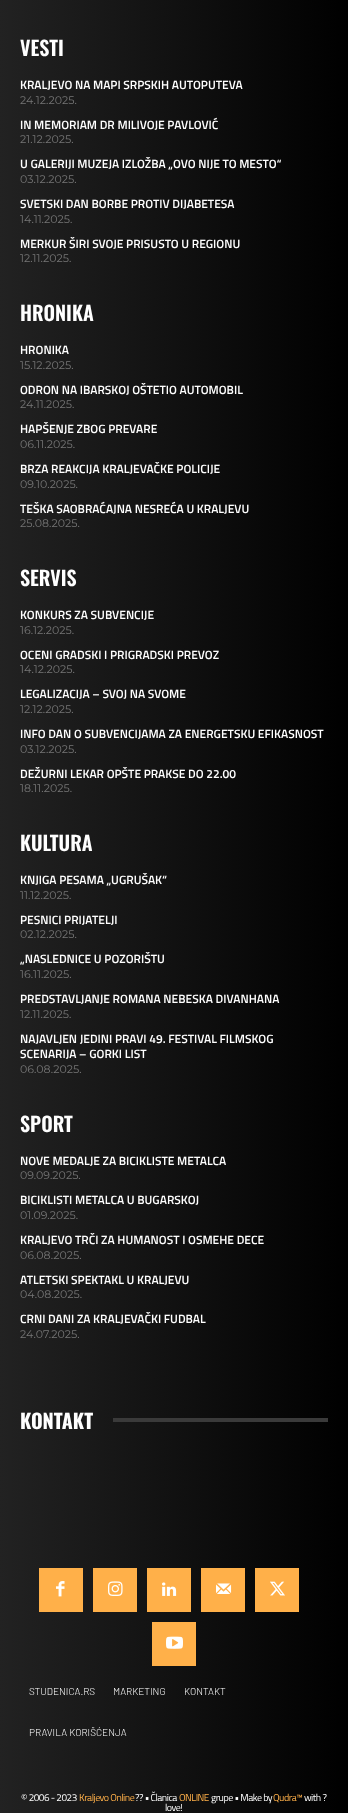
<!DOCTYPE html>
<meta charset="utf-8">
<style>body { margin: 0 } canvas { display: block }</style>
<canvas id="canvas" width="348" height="1813"></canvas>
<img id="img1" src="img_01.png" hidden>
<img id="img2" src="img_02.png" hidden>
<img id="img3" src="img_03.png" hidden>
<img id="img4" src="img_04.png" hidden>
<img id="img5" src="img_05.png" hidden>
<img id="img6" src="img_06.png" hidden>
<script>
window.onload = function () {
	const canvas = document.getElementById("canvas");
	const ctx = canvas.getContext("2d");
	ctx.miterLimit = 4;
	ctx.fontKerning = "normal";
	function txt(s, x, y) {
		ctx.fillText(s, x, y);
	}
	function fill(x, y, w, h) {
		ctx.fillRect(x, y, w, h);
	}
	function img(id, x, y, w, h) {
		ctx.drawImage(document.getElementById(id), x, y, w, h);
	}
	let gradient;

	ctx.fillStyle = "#FFFFFF";
	fill(0, 0, 348, 1813);
	gradient = ctx.createLinearGradient(348, 900, 0, 900);
	gradient.addColorStop(0, "#000000");
	gradient.addColorStop(1, "#222222");
	ctx.fillStyle = gradient;
	fill(0, 0, 348, 1813);
	ctx.fillStyle = "#3A3A3A";
	fill(113, 1418, 215, 4);
	ctx.fillStyle = "#FFB049";
	fill(39, 1568, 44, 44);
	img("img1", 56, 1581, 9, 16);
	fill(93, 1568, 44, 44);
	img("img2", 108, 1581, 15, 15);
	fill(147, 1568, 44, 44);
	img("img3", 162, 1582, 15, 14);
	fill(201, 1568, 44, 44);
	img("img4", 216, 1583, 16, 11);
	fill(255, 1568, 44, 44);
	img("img5", 270, 1581, 15, 15);
	fill(152, 1622, 44, 44);
	img("img6", 166, 1636, 17, 13);
	ctx.font = "600 20px Oswald";
	ctx.fillStyle = "#FFFFFF";
	txt("VESTI", 20, 56);
	ctx.font = "600 12px Titillium Web";
	txt("KRALJEVO NA MAPI SRPSKIH AUTOPUTEVA", 20, 89);
	ctx.font = "11px Montserrat";
	ctx.fillStyle = "#767676";
	txt("24.12.2025.", 20, 104);
	ctx.font = "600 12px Titillium Web";
	ctx.fillStyle = "#FFFFFF";
	txt("IN MEMORIAM DR MILIVOJE PAVLOVIĆ", 20, 129);
	ctx.font = "11px Montserrat";
	ctx.fillStyle = "#767676";
	txt("21.12.2025.", 20, 143);
	ctx.font = "600 12px Titillium Web";
	ctx.fillStyle = "#FFFFFF";
	txt("U GALERIJI MUZEJA IZLOŽBA „OVO NIJE TO MESTO“", 20, 168);
	ctx.font = "11px Montserrat";
	ctx.fillStyle = "#767676";
	txt("03.12.2025.", 20, 183);
	ctx.font = "600 12px Titillium Web";
	ctx.fillStyle = "#FFFFFF";
	txt("SVETSKI DAN BORBE PROTIV DIJABETESA", 20, 208);
	ctx.font = "11px Montserrat";
	ctx.fillStyle = "#767676";
	txt("14.11.2025.", 20, 223);
	ctx.font = "600 12px Titillium Web";
	ctx.fillStyle = "#FFFFFF";
	txt("MERKUR ŠIRI SVOJE PRISUSTO U REGIONU", 20, 248);
	ctx.font = "11px Montserrat";
	ctx.fillStyle = "#767676";
	txt("12.11.2025.", 20, 262);
	ctx.font = "600 20px Oswald";
	ctx.fillStyle = "#FFFFFF";
	txt("HRONIKA", 20, 321);
	ctx.font = "600 12px Titillium Web";
	txt("HRONIKA", 20, 354);
	ctx.font = "11px Montserrat";
	ctx.fillStyle = "#767676";
	txt("15.12.2025.", 20, 369);
	ctx.font = "600 12px Titillium Web";
	ctx.fillStyle = "#FFFFFF";
	txt("ODRON NA IBARSKOJ OŠTETIO AUTOMOBIL", 20, 394);
	ctx.font = "11px Montserrat";
	ctx.fillStyle = "#767676";
	txt("24.11.2025.", 20, 408);
	ctx.font = "600 12px Titillium Web";
	ctx.fillStyle = "#FFFFFF";
	txt("HAPŠENJE ZBOG PREVARE", 20, 433);
	ctx.font = "11px Montserrat";
	ctx.fillStyle = "#767676";
	txt("06.11.2025.", 20, 448);
	ctx.font = "600 12px Titillium Web";
	ctx.fillStyle = "#FFFFFF";
	txt("BRZA REAKCIJA KRALJEVAČKE POLICIJE", 20, 473);
	ctx.font = "11px Montserrat";
	ctx.fillStyle = "#767676";
	txt("09.10.2025.", 20, 488);
	ctx.font = "600 12px Titillium Web";
	ctx.fillStyle = "#FFFFFF";
	txt("TEŠKA SAOBRAĆAJNA NESREĆA U KRALJEVU", 20, 513);
	ctx.font = "11px Montserrat";
	ctx.fillStyle = "#767676";
	txt("25.08.2025.", 20, 527);
	ctx.font = "600 20px Oswald";
	ctx.fillStyle = "#FFFFFF";
	txt("SERVIS", 20, 586);
	ctx.font = "600 12px Titillium Web";
	txt("KONKURS ZA SUBVENCIJE", 20, 619);
	ctx.font = "11px Montserrat";
	ctx.fillStyle = "#767676";
	txt("16.12.2025.", 20, 634);
	ctx.font = "600 12px Titillium Web";
	ctx.fillStyle = "#FFFFFF";
	txt("OCENI GRADSKI I PRIGRADSKI PREVOZ", 20, 659);
	ctx.font = "11px Montserrat";
	ctx.fillStyle = "#767676";
	txt("14.12.2025.", 20, 673);
	ctx.font = "600 12px Titillium Web";
	ctx.fillStyle = "#FFFFFF";
	txt("LEGALIZACIJA – SVOJ NA SVOME", 20, 698);
	ctx.font = "11px Montserrat";
	ctx.fillStyle = "#767676";
	txt("12.12.2025.", 20, 713);
	ctx.font = "600 12px Titillium Web";
	ctx.fillStyle = "#FFFFFF";
	txt("INFO DAN O SUBVENCIJAMA ZA ENERGETSKU EFIKASNOST", 20, 738);
	ctx.font = "11px Montserrat";
	ctx.fillStyle = "#767676";
	txt("03.12.2025.", 20, 753);
	ctx.font = "600 12px Titillium Web";
	ctx.fillStyle = "#FFFFFF";
	txt("DEŽURNI LEKAR OPŠTE PRAKSE DO 22.00", 20, 778);
	ctx.font = "11px Montserrat";
	ctx.fillStyle = "#767676";
	txt("18.11.2025.", 20, 792);
	ctx.font = "600 20px Oswald";
	ctx.fillStyle = "#FFFFFF";
	txt("KULTURA", 20, 851);
	ctx.font = "600 12px Titillium Web";
	txt("KNJIGA PESAMA „UGRUŠAK“", 20, 884);
	ctx.font = "11px Montserrat";
	ctx.fillStyle = "#767676";
	txt("11.12.2025.", 20, 899);
	ctx.font = "600 12px Titillium Web";
	ctx.fillStyle = "#FFFFFF";
	txt("PESNICI PRIJATELJI", 20, 924);
	ctx.font = "11px Montserrat";
	ctx.fillStyle = "#767676";
	txt("02.12.2025.", 20, 938);
	ctx.font = "600 12px Titillium Web";
	ctx.fillStyle = "#FFFFFF";
	txt("„NASLEDNICE U POZORIŠTU", 20, 963);
	ctx.font = "11px Montserrat";
	ctx.fillStyle = "#767676";
	txt("16.11.2025.", 20, 978);
	ctx.font = "600 12px Titillium Web";
	ctx.fillStyle = "#FFFFFF";
	txt("PREDSTAVLJANJE ROMANA NEBESKA DIVANHANA", 20, 1003);
	ctx.font = "11px Montserrat";
	ctx.fillStyle = "#767676";
	txt("12.11.2025.", 20, 1018);
	ctx.font = "600 12px Titillium Web";
	ctx.fillStyle = "#FFFFFF";
	txt("NAJAVLJEN JEDINI PRAVI 49. FESTIVAL FILMSKOG", 20, 1043);
	txt("SCENARIJA – GORKI LIST", 20, 1058);
	ctx.font = "11px Montserrat";
	ctx.fillStyle = "#767676";
	txt("06.08.2025.", 20, 1073);
	ctx.font = "600 20px Oswald";
	ctx.fillStyle = "#FFFFFF";
	txt("SPORT", 20, 1132);
	ctx.font = "600 12px Titillium Web";
	txt("NOVE MEDALJE ZA BICIKLISTE METALCA", 20, 1165);
	ctx.font = "11px Montserrat";
	ctx.fillStyle = "#767676";
	txt("09.09.2025.", 20, 1179);
	ctx.font = "600 12px Titillium Web";
	ctx.fillStyle = "#FFFFFF";
	txt("BICIKLISTI METALCA U BUGARSKOJ", 20, 1204);
	ctx.font = "11px Montserrat";
	ctx.fillStyle = "#767676";
	txt("01.09.2025.", 20, 1219);
	ctx.font = "600 12px Titillium Web";
	ctx.fillStyle = "#FFFFFF";
	txt("KRALJEVO TRČI ZA HUMANOST I OSMEHE DECE", 20, 1244);
	ctx.font = "11px Montserrat";
	ctx.fillStyle = "#767676";
	txt("06.08.2025.", 20, 1259);
	ctx.font = "600 12px Titillium Web";
	ctx.fillStyle = "#FFFFFF";
	txt("ATLETSKI SPEKTAKL U KRALJEVU", 20, 1284);
	ctx.font = "11px Montserrat";
	ctx.fillStyle = "#767676";
	txt("04.08.2025.", 20, 1298);
	ctx.font = "600 12px Titillium Web";
	ctx.fillStyle = "#FFFFFF";
	txt("CRNI DANI ZA KRALJEVAČKI FUDBAL", 20, 1323);
	ctx.font = "11px Montserrat";
	ctx.fillStyle = "#767676";
	txt("24.07.2025.", 20, 1338);
	ctx.font = "bold 20px Oswald";
	ctx.fillStyle = "#FFFFFF";
	txt("KONTAKT", 20, 1429);
	ctx.font = "300 10px Barlow";
	txt("STUDENICA.RS", 29, 1695);
	txt("MARKETING", 113, 1695);
	txt("KONTAKT", 184, 1695);
	txt("PRAVILA KORIŠĆENJA", 29, 1736);
	ctx.letterSpacing = "-0.5px";
	ctx.font = "10px Titillium Web";
	txt("© 2006 - 2023", 21, 1801);
	ctx.fillStyle = "#FFB049";
	txt("Kraljevo Online", 79, 1801);
	ctx.fillStyle = "#FFFFFF";
	txt("?? • Članica", 135, 1801);
	ctx.fillStyle = "#FFB049";
	txt("ONLINE", 179, 1801);
	ctx.fillStyle = "#FFFFFF";
	txt("grupe • Make by", 211, 1801);
	ctx.fillStyle = "#FFB049";
	txt("Qudra™", 273, 1801);
	ctx.fillStyle = "#FFFFFF";
	txt("with ?", 304, 1801);
	txt("love!", 165, 1811);
};
</script>
